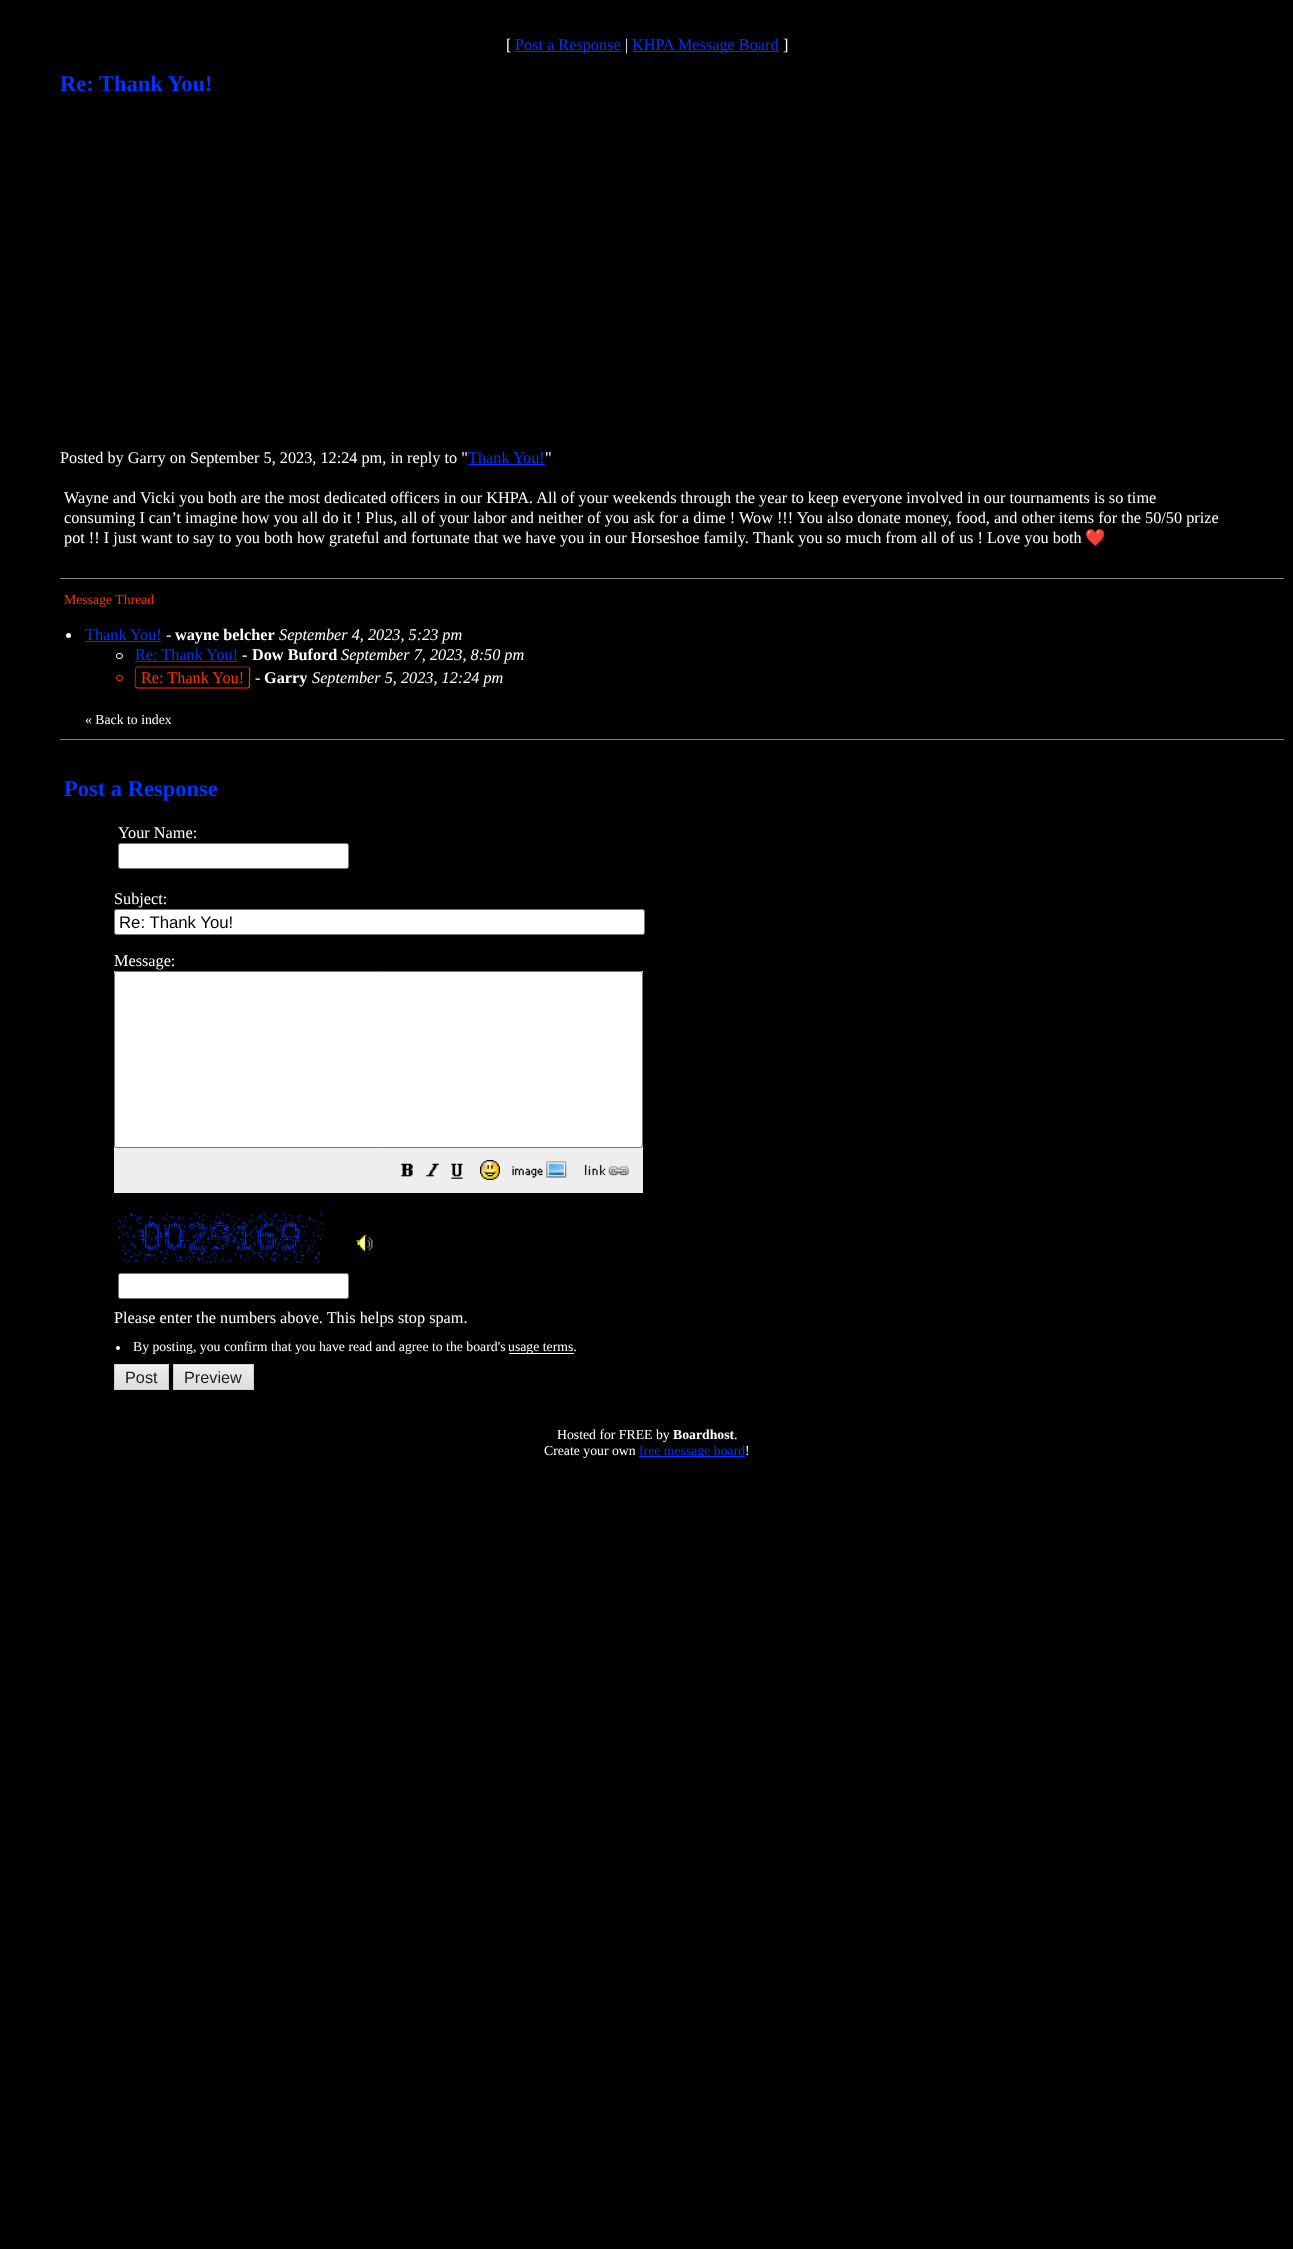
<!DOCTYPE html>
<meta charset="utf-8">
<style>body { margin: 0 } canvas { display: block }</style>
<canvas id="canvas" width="1293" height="2249"></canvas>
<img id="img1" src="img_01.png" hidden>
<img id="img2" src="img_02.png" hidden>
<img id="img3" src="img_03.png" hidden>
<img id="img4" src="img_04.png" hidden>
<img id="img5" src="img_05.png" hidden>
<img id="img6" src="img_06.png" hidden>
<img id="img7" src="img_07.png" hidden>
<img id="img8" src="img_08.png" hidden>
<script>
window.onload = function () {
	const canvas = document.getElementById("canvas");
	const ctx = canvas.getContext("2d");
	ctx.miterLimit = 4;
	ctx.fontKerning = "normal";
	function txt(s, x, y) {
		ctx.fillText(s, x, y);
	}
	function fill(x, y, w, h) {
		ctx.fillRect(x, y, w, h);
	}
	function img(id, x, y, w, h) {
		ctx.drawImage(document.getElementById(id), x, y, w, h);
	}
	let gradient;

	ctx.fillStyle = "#000000";
	fill(0, 0, 1293, 2249);
	ctx.fillStyle = "#0033FF";
	fill(515, 51, 106, 1);
	fill(633, 51, 146, 1);
	fill(468, 464, 77, 1);
	ctx.fillStyle = "#808080";
	fill(60, 578, 1224, 1);
	ctx.fillStyle = "#FFFFFF";
	ctx.beginPath();
	ctx.arc(68.5, 635.5, 2.5, 0, Math.PI * 2);
	ctx.fill();
	ctx.fillStyle = "#0033FF";
	fill(85, 641, 76, 1);
	ctx.beginPath();
	ctx.roundRect(116.5, 653.5, 6, 5, 2.5);
	ctx.strokeStyle = "#FFFFFF";
	ctx.stroke();
	fill(135, 661, 103, 1);
	ctx.beginPath();
	ctx.roundRect(116.5, 675.5, 6, 5, 2.5);
	ctx.strokeStyle = "#FF3300";
	ctx.stroke();
	ctx.beginPath();
	ctx.moveTo(249, 667.5);
	ctx.bezierCurveTo(250.5, 669, 249.5, 675.5, 249.5, 677.5);
	ctx.lineTo(249.5, 683.5);
	ctx.bezierCurveTo(249.5, 684.5, 250, 688, 247.5, 688);
	ctx.lineTo(137.5, 688);
	ctx.lineTo(136, 687.5);
	ctx.lineWidth = 1.2;
	ctx.stroke();
	ctx.beginPath();
	ctx.moveTo(136, 687.5);
	ctx.bezierCurveTo(134.5, 686, 135.5, 679.5, 135.5, 677.5);
	ctx.lineTo(135.5, 671.5);
	ctx.bezierCurveTo(135.5, 670.5, 135, 667, 137.5, 667);
	ctx.lineTo(247.5, 667);
	ctx.lineTo(249, 667.5);
	ctx.strokeStyle = "#AA2200";
	ctx.stroke();
	ctx.fillStyle = "#808080";
	fill(60, 739, 1224, 1);
	ctx.fillStyle = "#FFFFFF";
	ctx.beginPath();
	ctx.roundRect(118.5, 843.5, 230, 25, 2);
	ctx.fill();
	ctx.strokeStyle = "#767676";
	ctx.lineWidth = 1;
	ctx.stroke();
	ctx.beginPath();
	ctx.roundRect(114.5, 909.5, 530, 25, 2);
	ctx.fill();
	ctx.stroke();
	ctx.fillStyle = "#EEEEEE";
	fill(114, 971, 529, 222);
	ctx.fillStyle = "#FFFFFF";
	ctx.beginPath();
	ctx.roundRect(114.5, 971.5, 528, 176, 2);
	ctx.fill();
	ctx.stroke();
	img("img1", 401, 1163, 12, 14);
	img("img2", 426, 1163, 13, 14);
	img("img3", 451, 1163, 12, 16);
	img("img4", 480, 1160, 20, 20);
	img("img5", 512, 1161, 55, 17);
	img("img6", 584, 1160, 46, 20);
	img("img7", 118, 1213, 206, 50);
	img("img8", 356, 1235, 17, 17);
	ctx.beginPath();
	ctx.roundRect(118.5, 1273.5, 230, 25, 2);
	ctx.fill();
	ctx.stroke();
	ctx.beginPath();
	ctx.arc(118, 1348, 2, 0, Math.PI * 2);
	ctx.fill();
	fill(509, 1353, 65, 1);
	gradient = ctx.createLinearGradient(141, 1365, 141, 1389);
	gradient.addColorStop(0, "#EEEEEE");
	gradient.addColorStop(1, "#DDDDDD");
	ctx.fillStyle = gradient;
	fill(115, 1366, 53, 23);
	ctx.fillStyle = "#FAFAFA";
	fill(115, 1365, 53, 1);
	ctx.strokeStyle = "#CCCCCC";
	ctx.strokeRect(114.5, 1364.5, 54, 25);
	gradient = ctx.createLinearGradient(213, 1365, 213, 1389);
	gradient.addColorStop(0, "#EEEEEE");
	gradient.addColorStop(1, "#DDDDDD");
	ctx.fillStyle = gradient;
	fill(174, 1366, 79, 23);
	ctx.fillStyle = "#FAFAFA";
	fill(174, 1365, 79, 1);
	ctx.strokeRect(173.5, 1364.5, 80, 25);
	ctx.fillStyle = "#0033FF";
	fill(639, 1456, 106, 1);
	ctx.font = "16.25px Liberation Serif";
	ctx.fillStyle = "#FFFFFF";
	txt("[", 506, 50);
	ctx.fillStyle = "#0033FF";
	txt("Post a Response", 515, 50);
	ctx.fillStyle = "#FFFFFF";
	txt("|", 625, 50);
	ctx.fillStyle = "#0033FF";
	txt("KHPA Message Board", 632, 50);
	ctx.fillStyle = "#FFFFFF";
	txt("]", 783, 50);
	ctx.font = "bold 22.5px Liberation Serif";
	ctx.fillStyle = "#0033FF";
	txt("Re: Thank You!", 60, 91);
	ctx.font = "16.25px Liberation Serif";
	ctx.fillStyle = "#FFFFFF";
	txt("Posted by Garry on September 5, 2023, 12:24 pm, in reply to \"", 60, 463);
	ctx.fillStyle = "#0033FF";
	txt("Thank You!", 468, 463);
	ctx.fillStyle = "#FFFFFF";
	txt("\"", 545, 463);
	txt("Wayne and Vicki you both are the most dedicated officers in our KHPA. All of your weekends through the year to keep everyone involved in our tournaments is so time", 64, 503);
	txt("consuming I can’t imagine how you all do it ! Plus, all of your labor and neither of you ask for a dime ! Wow !!! You also donate money, food, and other items for the 50/50 prize", 64, 523);
	txt("pot !! I just want to say to you both how grateful and fortunate that we have you in our Horseshoe family. Thank you so much from all of us ! Love you both", 64, 543);
	ctx.font = "16.25px Noto Color Emoji";
	txt("❤️", 1085, 543);
	ctx.font = "13.75px Liberation Serif";
	ctx.fillStyle = "#FF3300";
	txt("Message Thread", 64, 604);
	ctx.font = "16.25px Liberation Serif";
	ctx.fillStyle = "#0033FF";
	txt("Thank You!", 85, 640);
	ctx.fillStyle = "#FFFFFF";
	txt("-", 166, 640);
	ctx.font = "bold 16.25px Liberation Serif";
	txt("wayne belcher", 175, 640);
	ctx.font = "italic 16.25px Liberation Serif";
	txt("September 4, 2023, 5:23 pm", 279, 640);
	ctx.font = "16.25px Liberation Serif";
	ctx.fillStyle = "#0033FF";
	txt("Re: Thank You!", 135, 660);
	ctx.fillStyle = "#FFFFFF";
	txt("-", 242, 660);
	ctx.font = "bold 16.25px Liberation Serif";
	txt("Dow Buford", 252, 660);
	ctx.font = "italic 16.25px Liberation Serif";
	txt("September 7, 2023, 8:50 pm", 341, 660);
	ctx.font = "16.25px Liberation Serif";
	ctx.fillStyle = "#FF3300";
	txt("Re: Thank You!", 141, 683);
	ctx.fillStyle = "#FFFFFF";
	txt("-", 255, 683);
	ctx.font = "bold 16.25px Liberation Serif";
	txt("Garry", 264, 683);
	ctx.font = "italic 16.25px Liberation Serif";
	txt("September 5, 2023, 12:24 pm", 312, 683);
	ctx.font = "13.75px Liberation Serif";
	txt("« Back to index", 85, 724);
	ctx.font = "bold 22.5px Liberation Serif";
	ctx.fillStyle = "#0033FF";
	txt("Post a Response", 64, 796);
	ctx.font = "16.25px Liberation Serif";
	ctx.fillStyle = "#FFFFFF";
	txt("Your Name:", 118, 838);
	txt("Subject:", 114, 904);
	ctx.font = "16.75px Liberation Sans";
	ctx.fillStyle = "#000000";
	txt("Re: Thank You!", 119, 928);
	ctx.font = "16.25px Liberation Serif";
	ctx.fillStyle = "#FFFFFF";
	txt("Message:", 114, 966);
	txt("Please enter the numbers above. This helps stop spam.", 114, 1323);
	ctx.font = "13.75px Liberation Serif";
	txt("By posting, you confirm that you have read and agree to the board's", 133, 1351);
	txt("usage terms.", 508, 1351);
	ctx.font = "16.25px Liberation Sans";
	ctx.fillStyle = "#202020";
	txt("Post", 125, 1383);
	txt("Preview", 184, 1383);
	ctx.font = "13.75px Liberation Serif";
	ctx.fillStyle = "#FFFFFF";
	txt("Hosted for FREE by", 557, 1439);
	ctx.font = "bold 13.75px Liberation Serif";
	txt("Boardhost", 673, 1439);
	ctx.font = "13.75px Liberation Serif";
	txt(".", 734, 1439);
	txt("Create your own", 544, 1455);
	ctx.fillStyle = "#0033FF";
	txt("free message board", 639, 1455);
	ctx.fillStyle = "#FFFFFF";
	txt("!", 745, 1455);
};
</script>
